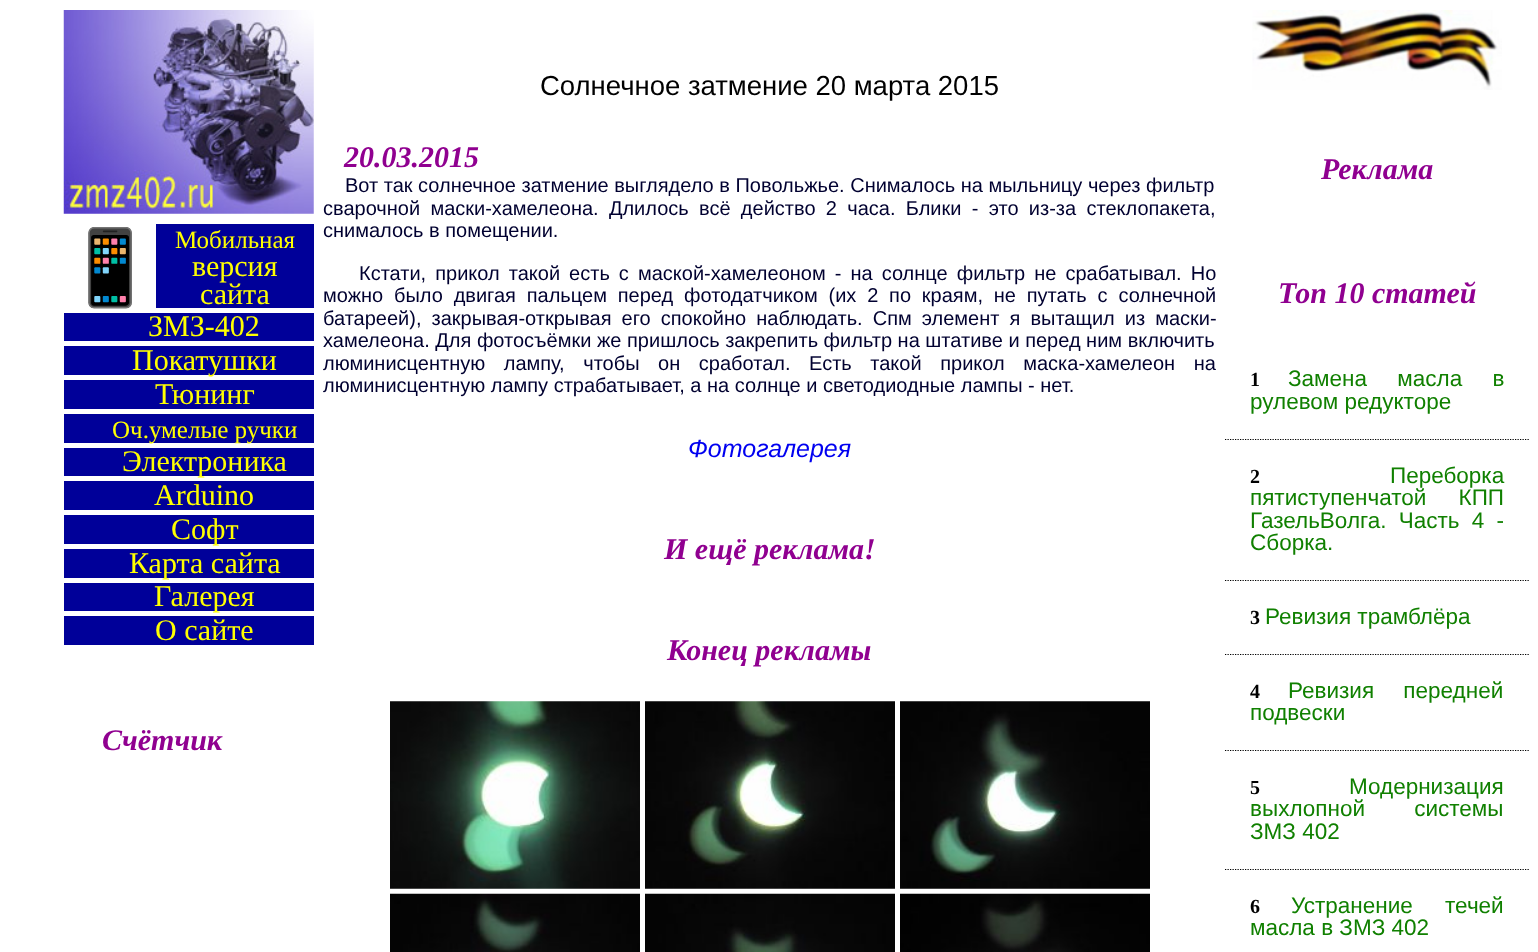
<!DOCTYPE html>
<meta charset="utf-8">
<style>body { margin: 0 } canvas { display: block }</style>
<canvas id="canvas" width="1538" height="952"></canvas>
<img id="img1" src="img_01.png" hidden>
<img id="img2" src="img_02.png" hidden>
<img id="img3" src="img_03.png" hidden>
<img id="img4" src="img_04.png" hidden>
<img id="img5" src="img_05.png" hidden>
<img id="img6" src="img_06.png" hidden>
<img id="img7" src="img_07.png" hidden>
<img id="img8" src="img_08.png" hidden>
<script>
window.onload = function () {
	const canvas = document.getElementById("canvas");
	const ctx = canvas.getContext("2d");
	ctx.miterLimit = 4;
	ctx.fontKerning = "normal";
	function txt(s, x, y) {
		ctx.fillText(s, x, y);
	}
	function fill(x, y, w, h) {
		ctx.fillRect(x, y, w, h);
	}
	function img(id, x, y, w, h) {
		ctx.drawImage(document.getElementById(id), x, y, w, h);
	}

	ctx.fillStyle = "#FFFFFF";
	fill(0, 0, 1538, 952);
	img("img1", 63, 10, 251, 204);
	ctx.fillStyle = "#000099";
	fill(156, 224, 158, 84);
	fill(64, 313, 250, 28);
	fill(64, 346, 250, 29);
	fill(64, 380, 250, 29);
	fill(64, 414, 250, 29);
	fill(64, 448, 250, 28);
	fill(64, 481, 250, 29);
	fill(64, 515, 250, 29);
	fill(64, 549, 250, 29);
	fill(64, 583, 250, 28);
	fill(64, 616, 250, 29);
	img("img2", 390, 701, 250, 188);
	img("img3", 645, 701, 250, 188);
	img("img4", 900, 701, 250, 188);
	img("img5", 390, 893, 250, 59);
	img("img6", 645, 893, 250, 59);
	img("img7", 900, 893, 250, 59);
	img("img8", 1252, 10, 250, 80);
	ctx.beginPath();
	ctx.moveTo(1225, 439.5);
	ctx.lineTo(1529, 439.5);
	ctx.strokeStyle = "#000000";
	ctx.lineWidth = 1.2;
	ctx.setLineDash([1.25, 1.25]);
	ctx.stroke();
	ctx.beginPath();
	ctx.moveTo(1225, 580.5);
	ctx.lineTo(1529, 580.5);
	ctx.stroke();
	ctx.beginPath();
	ctx.moveTo(1225, 654.5);
	ctx.lineTo(1529, 654.5);
	ctx.stroke();
	ctx.beginPath();
	ctx.moveTo(1225, 750.5);
	ctx.lineTo(1529, 750.5);
	ctx.stroke();
	ctx.beginPath();
	ctx.moveTo(1225, 869.5);
	ctx.lineTo(1529, 869.5);
	ctx.stroke();
	ctx.font = "74px Noto Color Emoji";
	ctx.fillStyle = "#000000";
	txt("📱", 64, 293);
	ctx.font = "25px Liberation Serif";
	ctx.fillStyle = "#FFFF00";
	txt("Мобильная", 175, 248);
	ctx.font = "30px Liberation Serif";
	txt("версия", 192, 276);
	txt("сайта", 200, 304);
	txt("ЗМЗ-402", 148, 336);
	txt("Покатушки", 132, 370);
	txt("Тюнинг", 155, 404);
	ctx.font = "25px Liberation Serif";
	txt("Оч.умелые ручки", 112, 438);
	ctx.font = "30px Liberation Serif";
	txt("Электроника", 122, 471);
	txt("Arduino", 154, 505);
	txt("Софт", 171, 539);
	txt("Карта сайта", 129, 573);
	txt("Галерея", 154, 606);
	txt("О сайте", 155, 640);
	ctx.font = "italic bold 30px Liberation Serif";
	ctx.fillStyle = "#900090";
	txt("Счётчик", 102, 750);
	ctx.font = "27.5px Liberation Sans";
	ctx.fillStyle = "#000000";
	txt("Солнечное затмение 20 марта 2015", 540, 95);
	ctx.font = "italic bold 30px Liberation Serif";
	ctx.fillStyle = "#900090";
	txt("20.03.2015", 344, 167);
	ctx.font = "20px Liberation Sans";
	ctx.fillStyle = "#000030";
	txt("Вот так солнечное затмение выглядело в Повольжье. Снималось на мыльницу через фильтр", 345, 192);
	ctx.wordSpacing = "4.75px";
	txt("сварочной маски-хамелеона. Длилось всё действо 2 часа. Блики - это из-за стеклопакета,", 323, 215);
	ctx.wordSpacing = "0px";
	txt("снималось в помещении.", 323, 237);
	ctx.wordSpacing = "3.5px";
	txt("Кстати, прикол такой есть с маской-хамелеоном - на солнце фильтр не срабатывал. Но", 359, 280);
	ctx.wordSpacing = "5.25px";
	txt("можно было двигая пальцем перед", 323, 302);
	txt("фотодатчиком (их 2 по краям, не путать с солнечной", 684, 302);
	ctx.wordSpacing = "4.5px";
	txt("батареей), закрывая-открывая его спокойно наблюдать. Спм элемент я вытащил из маски-", 323, 325);
	ctx.wordSpacing = "0px";
	txt("хамелеона. Для фотосъёмки же пришлось закрепить фильтр на штативе и перед ним включить", 323, 347);
	ctx.wordSpacing = "13px";
	txt("люминисцентную лампу, чтобы он сработал. Есть такой прикол маска-хамелеон на", 323, 370);
	ctx.wordSpacing = "0px";
	txt("люминисцентную лампу страбатывает, а на солнце и светодиодные лампы - нет.", 323, 392);
	ctx.font = "italic 25px Liberation Sans";
	ctx.fillStyle = "#0000F0";
	txt("Фотогалерея", 688, 457);
	ctx.font = "italic bold 30px Liberation Serif";
	ctx.fillStyle = "#900090";
	txt("И ещё реклама!", 664, 559);
	txt("Конец рекламы", 667, 660);
	txt("Реклама", 1321, 179);
	txt("Топ 10 статей", 1278, 303);
	ctx.font = "bold 20px Liberation Serif";
	ctx.fillStyle = "#000000";
	txt("1", 1250, 386);
	ctx.wordSpacing = "24px";
	ctx.font = "22.5px Liberation Sans";
	ctx.fillStyle = "#108000";
	txt("Замена масла в", 1288, 386);
	ctx.wordSpacing = "0px";
	txt("рулевом редукторе", 1250, 409);
	ctx.font = "bold 20px Liberation Serif";
	ctx.fillStyle = "#000000";
	txt("2", 1250, 483);
	ctx.font = "22.5px Liberation Sans";
	ctx.fillStyle = "#108000";
	txt("Переборка", 1390, 483);
	ctx.wordSpacing = "26px";
	txt("пятиступенчатой КПП", 1250, 505);
	ctx.wordSpacing = "6px";
	txt("ГазельВолга. Часть 4 -", 1250, 528);
	ctx.wordSpacing = "0px";
	txt("Сборка.", 1250, 550);
	ctx.font = "bold 20px Liberation Serif";
	ctx.fillStyle = "#000000";
	txt("3", 1250, 624);
	ctx.font = "22.5px Liberation Sans";
	ctx.fillStyle = "#108000";
	txt("Ревизия трамблёра", 1265, 624);
	ctx.font = "bold 20px Liberation Serif";
	ctx.fillStyle = "#000000";
	txt("4", 1250, 698);
	ctx.wordSpacing = "23px";
	ctx.font = "22.5px Liberation Sans";
	ctx.fillStyle = "#108000";
	txt("Ревизия передней", 1288, 698);
	ctx.wordSpacing = "0px";
	txt("подвески", 1250, 720);
	ctx.font = "bold 20px Liberation Serif";
	ctx.fillStyle = "#000000";
	txt("5", 1250, 794);
	ctx.font = "22.5px Liberation Sans";
	ctx.fillStyle = "#108000";
	txt("Модернизация", 1349, 794);
	ctx.wordSpacing = "43px";
	txt("выхлопной системы", 1250, 816);
	ctx.wordSpacing = "0px";
	txt("ЗМЗ 402", 1250, 839);
	ctx.font = "bold 20px Liberation Serif";
	ctx.fillStyle = "#000000";
	txt("6", 1250, 913);
	ctx.wordSpacing = "26px";
	ctx.font = "22.5px Liberation Sans";
	ctx.fillStyle = "#108000";
	txt("Устранение течей", 1291, 913);
	ctx.wordSpacing = "0px";
	txt("масла в ЗМЗ 402", 1250, 935);
};
</script>
